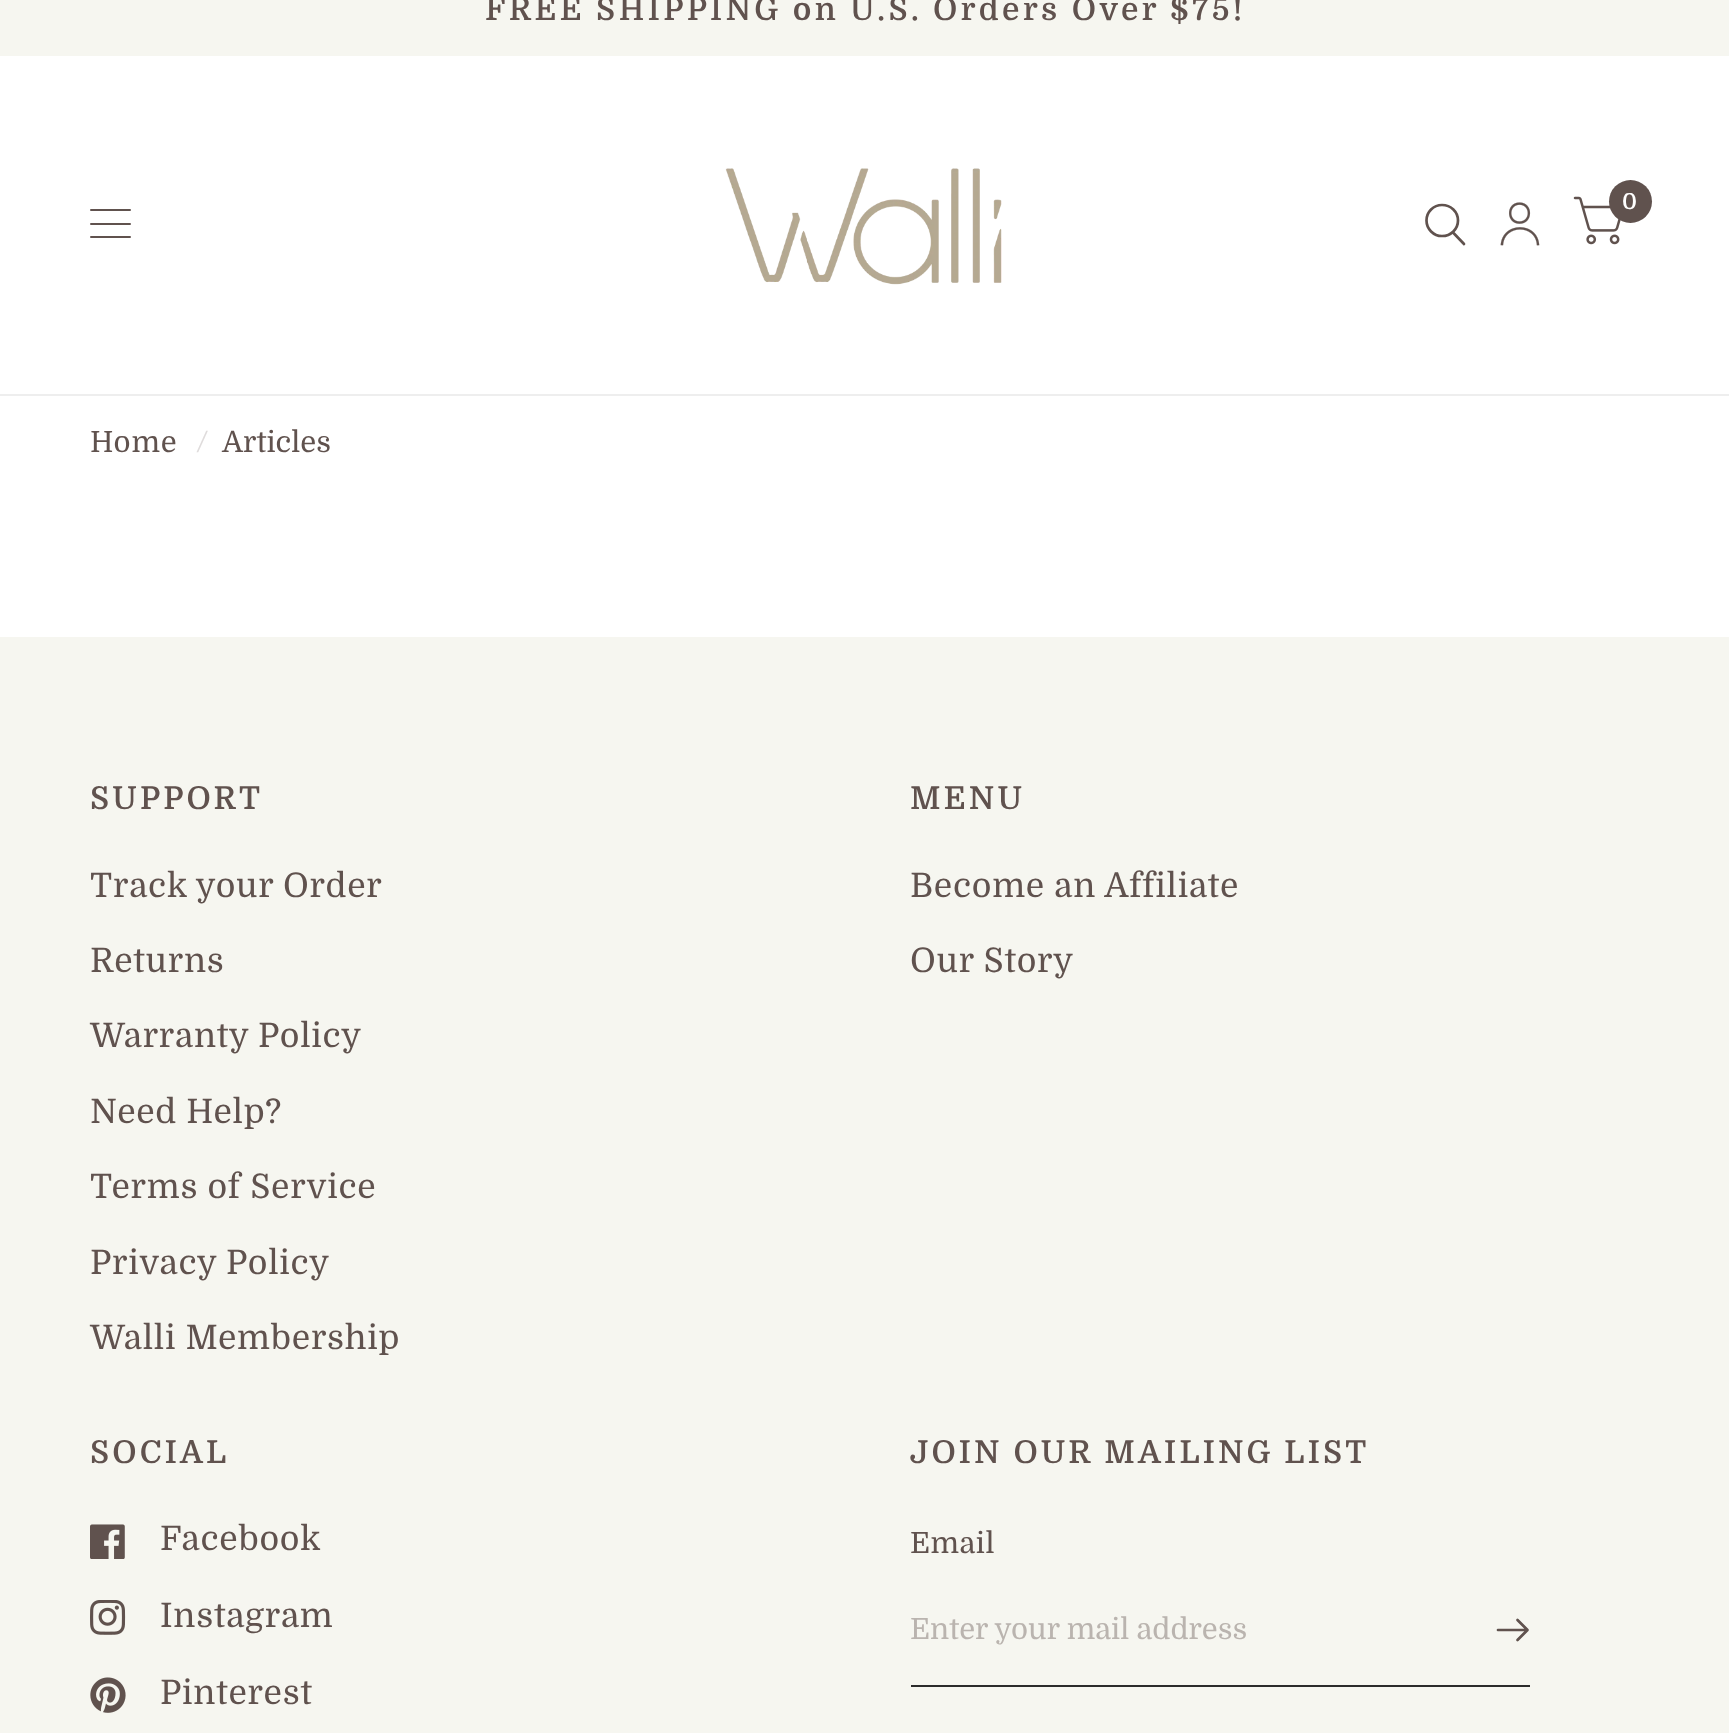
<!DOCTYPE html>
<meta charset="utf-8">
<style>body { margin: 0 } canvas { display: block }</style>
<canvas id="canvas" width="1729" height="1733"></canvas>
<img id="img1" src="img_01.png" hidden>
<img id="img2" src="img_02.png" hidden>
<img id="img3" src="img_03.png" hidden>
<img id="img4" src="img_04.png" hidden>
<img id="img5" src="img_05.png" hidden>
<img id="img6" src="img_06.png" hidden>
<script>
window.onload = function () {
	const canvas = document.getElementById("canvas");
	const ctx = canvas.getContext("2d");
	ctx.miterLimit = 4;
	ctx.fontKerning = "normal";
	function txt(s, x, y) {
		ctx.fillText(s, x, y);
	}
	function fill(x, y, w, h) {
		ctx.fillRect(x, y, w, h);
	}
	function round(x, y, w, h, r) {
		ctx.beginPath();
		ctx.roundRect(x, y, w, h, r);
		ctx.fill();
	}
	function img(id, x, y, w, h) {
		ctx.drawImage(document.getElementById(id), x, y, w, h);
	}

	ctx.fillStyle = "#FFFFFF";
	fill(0, 0, 1729, 1733);
	ctx.fillStyle = "#F6F6F0";
	fill(0, 0, 1729, 56);
	ctx.fillStyle = "#EEEEEE";
	fill(0, 394, 1729, 2);
	img("img1", 725, 168, 277, 117);
	ctx.beginPath();
	ctx.moveTo(1453.5, 233);
	ctx.lineTo(1464, 244);
	ctx.moveTo(1458, 220.5);
	ctx.bezierCurveTo(1458, 229, 1451, 236, 1442, 236);
	ctx.bezierCurveTo(1433.5, 236, 1426.5, 229, 1426.5, 220.5);
	ctx.bezierCurveTo(1426.5, 212, 1433.5, 205, 1442, 205);
	ctx.bezierCurveTo(1451, 205, 1458, 212, 1458, 220.5);
	ctx.closePath();
	ctx.strokeStyle = "#60524E";
	ctx.lineWidth = 2.7;
	ctx.lineCap = "round";
	ctx.lineJoin = "round";
	ctx.stroke();
	img("img2", 1500, 202, 40, 44);
	img("img3", 1573, 196, 48, 49);
	ctx.fillStyle = "#60524E";
	ctx.beginPath();
	ctx.arc(1630.5, 201.5, 21.5, 0, Math.PI * 2);
	ctx.fill();
	round(90, 209, 41, 2, 1);
	round(90, 223, 41, 2, 1);
	round(90, 236, 41, 2, 1);
	ctx.fillStyle = "#F6F6F0";
	fill(0, 637, 1729, 1096);
	img("img4", 90, 1524, 35, 35);
	img("img5", 90, 1600, 36, 35);
	img("img6", 90, 1677, 36, 36);
	ctx.fillStyle = "#2B2B2B";
	fill(911, 1685, 619, 2);
	ctx.beginPath();
	ctx.moveTo(1498, 1630);
	ctx.lineTo(1525, 1630);
	ctx.moveTo(1517.5, 1620);
	ctx.lineTo(1527.5, 1630);
	ctx.lineTo(1517.5, 1640);
	ctx.stroke();
	ctx.letterSpacing = "3.4px";
	ctx.font = "600 31.5px Domine";
	ctx.fillStyle = "#60524E";
	txt("FREE SHIPPING on U.S. Orders Over $75!", 485, 20);
	ctx.letterSpacing = "0.75px";
	ctx.font = "600 22px Domine";
	ctx.fillStyle = "#FFFFFF";
	txt("0", 1622, 209);
	ctx.font = "29.25px Domine";
	ctx.fillStyle = "#60524E";
	txt("Home", 90, 452);
	ctx.letterSpacing = "0px";
	ctx.font = "italic 29.25px Domine";
	ctx.fillStyle = "#DFDCDC";
	txt("/", 195, 452);
	ctx.font = "29.25px Domine";
	ctx.fillStyle = "#60524E";
	txt("Articles", 222, 452);
	ctx.letterSpacing = "3.15px";
	ctx.font = "600 31.5px Domine";
	txt("SUPPORT", 90, 809);
	ctx.letterSpacing = "0.75px";
	ctx.font = "33.75px Domine";
	txt("Track your Order", 90, 897);
	txt("Returns", 90, 972);
	txt("Warranty Policy", 90, 1047);
	txt("Need Help?", 90, 1123);
	txt("Terms of Service", 90, 1198);
	txt("Privacy Policy", 90, 1274);
	txt("Walli Membership", 90, 1349);
	ctx.letterSpacing = "3.15px";
	ctx.font = "600 31.5px Domine";
	txt("MENU", 910, 809);
	ctx.letterSpacing = "0.75px";
	ctx.font = "33.75px Domine";
	txt("Become an Affiliate", 910, 897);
	txt("Our Story", 910, 972);
	ctx.letterSpacing = "3.15px";
	ctx.font = "600 31.5px Domine";
	txt("SOCIAL", 90, 1463);
	ctx.letterSpacing = "0.75px";
	ctx.font = "33.75px Domine";
	txt("Facebook", 160, 1550);
	txt("Instagram", 160, 1627);
	txt("Pinterest", 160, 1704);
	ctx.letterSpacing = "3.15px";
	ctx.font = "600 31.5px Domine";
	txt("JOIN OUR MAILING LIST", 910, 1463);
	ctx.letterSpacing = "0.5px";
	ctx.font = "29.25px Domine";
	txt("Email", 910, 1553);
	ctx.letterSpacing = "0px";
	ctx.fillStyle = "#BAB4AF";
	txt("Enter your mail address", 910, 1639);
};
</script>
